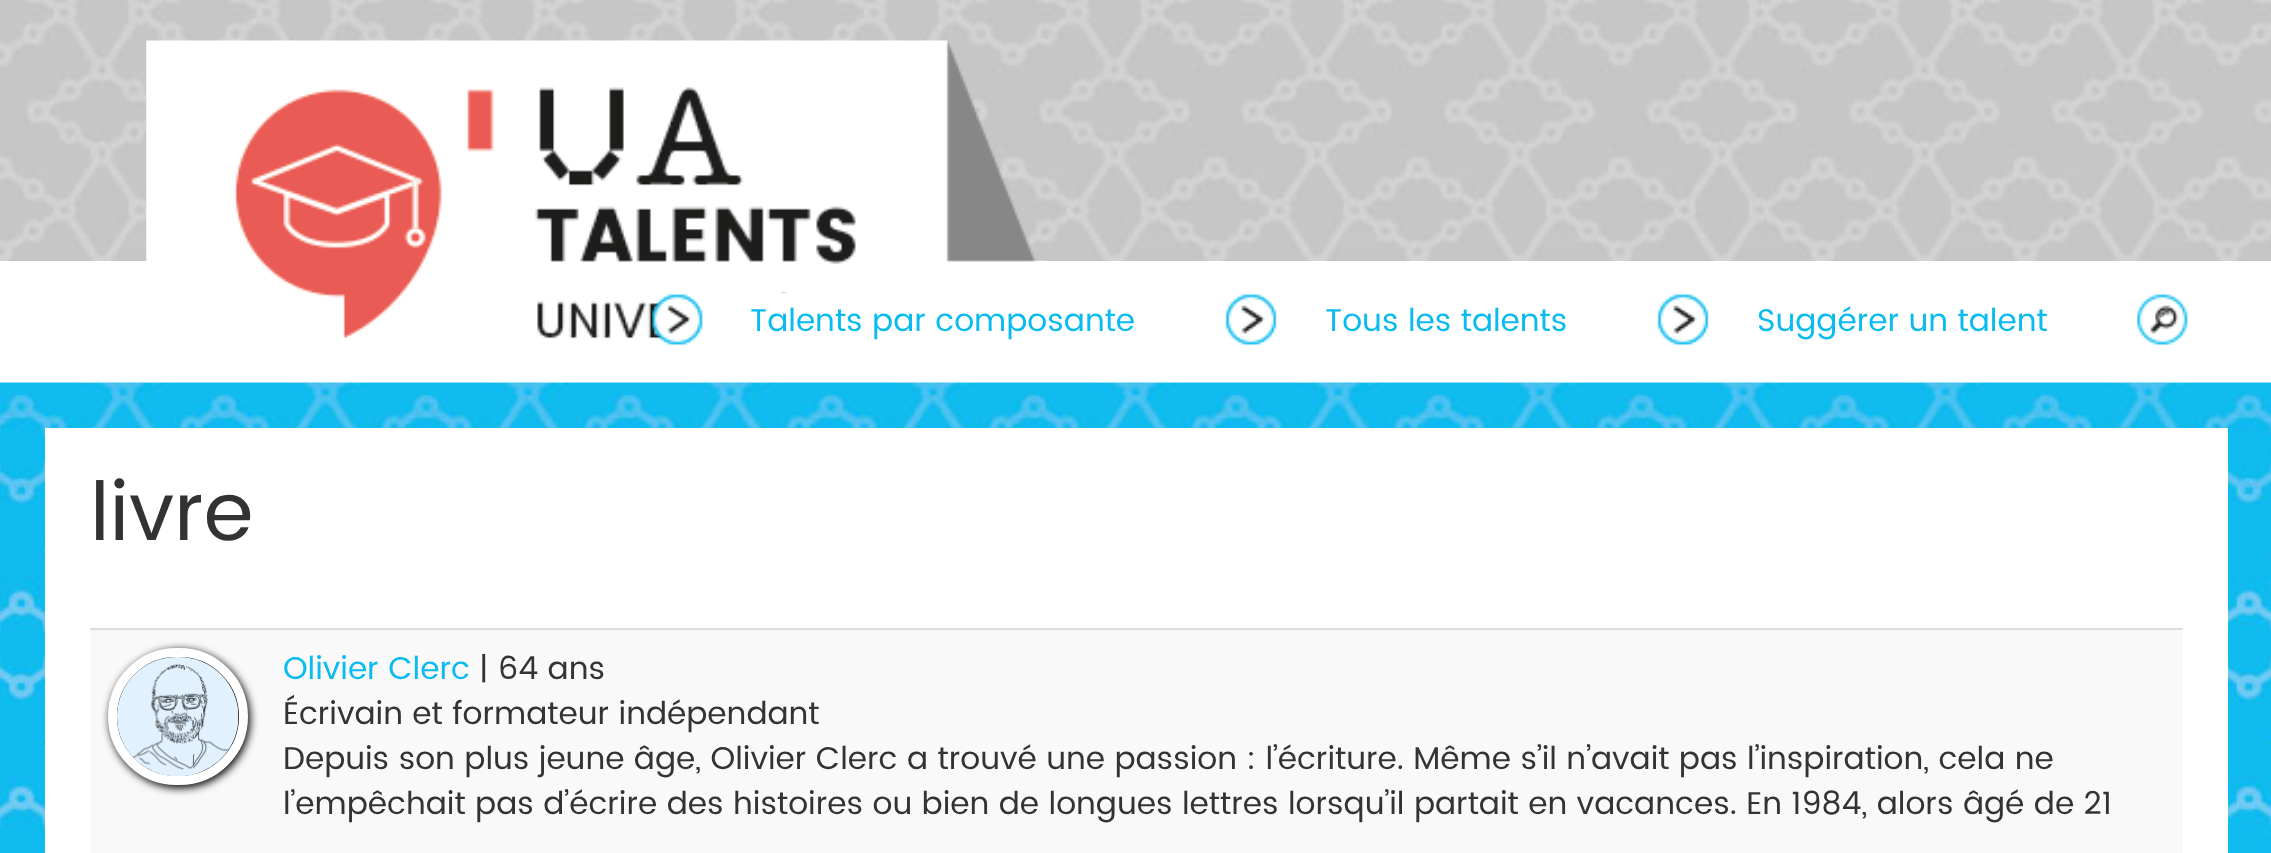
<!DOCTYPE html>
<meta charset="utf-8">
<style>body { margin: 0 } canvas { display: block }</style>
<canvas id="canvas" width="2271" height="853"></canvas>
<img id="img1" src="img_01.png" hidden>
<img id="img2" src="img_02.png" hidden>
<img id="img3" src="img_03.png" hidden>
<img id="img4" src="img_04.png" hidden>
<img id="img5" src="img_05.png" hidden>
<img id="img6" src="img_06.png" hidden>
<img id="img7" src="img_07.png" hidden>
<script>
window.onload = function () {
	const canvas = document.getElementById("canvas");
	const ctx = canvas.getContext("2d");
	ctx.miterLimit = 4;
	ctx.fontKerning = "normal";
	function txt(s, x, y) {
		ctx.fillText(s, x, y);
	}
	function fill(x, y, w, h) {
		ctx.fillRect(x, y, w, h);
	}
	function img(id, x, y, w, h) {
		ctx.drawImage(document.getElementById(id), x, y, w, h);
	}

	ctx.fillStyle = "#FFFFFF";
	fill(0, 0, 2271, 853);
	img("img1", 0, 0, 2271, 261);
	img("img2", 146, 40, 900, 299);
	fill(684, 293, 352, 46);
	img("img3", 652, 294, 51, 51);
	img("img4", 1225, 294, 52, 51);
	img("img4", 1657, 294, 52, 51);
	img("img5", 2137, 294, 51, 51);
	img("img6", 0, 382, 2271, 471);
	fill(45, 428, 2183, 425);
	ctx.fillStyle = "#F9F9F9";
	fill(90, 630, 2093, 223);
	ctx.fillStyle = "#000000";
	ctx.filter = "blur(4.5px)";
	ctx.beginPath();
	ctx.roundRect(110, 650, 140, 138, 69);
	ctx.fill();
	ctx.filter = "none";
	ctx.beginPath();
	ctx.roundRect(112.5, 652.5, 131, 128, 64);
	ctx.fill();
	ctx.strokeStyle = "#FFFFFF";
	ctx.lineWidth = 9;
	ctx.stroke();
	img("img7", 117, 657, 122, 119);
	ctx.fillStyle = "#DDDDDD";
	fill(90, 628, 2093, 2);
	ctx.font = "31.5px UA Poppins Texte";
	ctx.fillStyle = "#0ABBEF";
	txt("Talents par composante", 750, 331);
	txt("Tous les talents", 1325, 331);
	txt("Suggérer un talent", 1757, 331);
	ctx.font = "81px UA Poppins Texte";
	ctx.fillStyle = "#333333";
	txt("livre", 90, 540);
	ctx.font = "31.5px UA Poppins Texte";
	ctx.fillStyle = "#0ABBEF";
	txt("Olivier Clerc", 283, 679);
	ctx.fillStyle = "#333333";
	txt("| 64 ans", 479, 679);
	txt("Écrivain et formateur indépendant", 283, 724);
	txt("Depuis son plus jeune âge, Olivier Clerc a trouvé une passion : l’écriture. Même s’il n’avait pas l’inspiration, cela ne", 283, 769);
	txt("l’empêchait pas d’écrire des histoires ou bien de longues lettres lorsqu’il partait en vacances. En 1984, alors âgé de 21", 283, 814);
};
</script>
